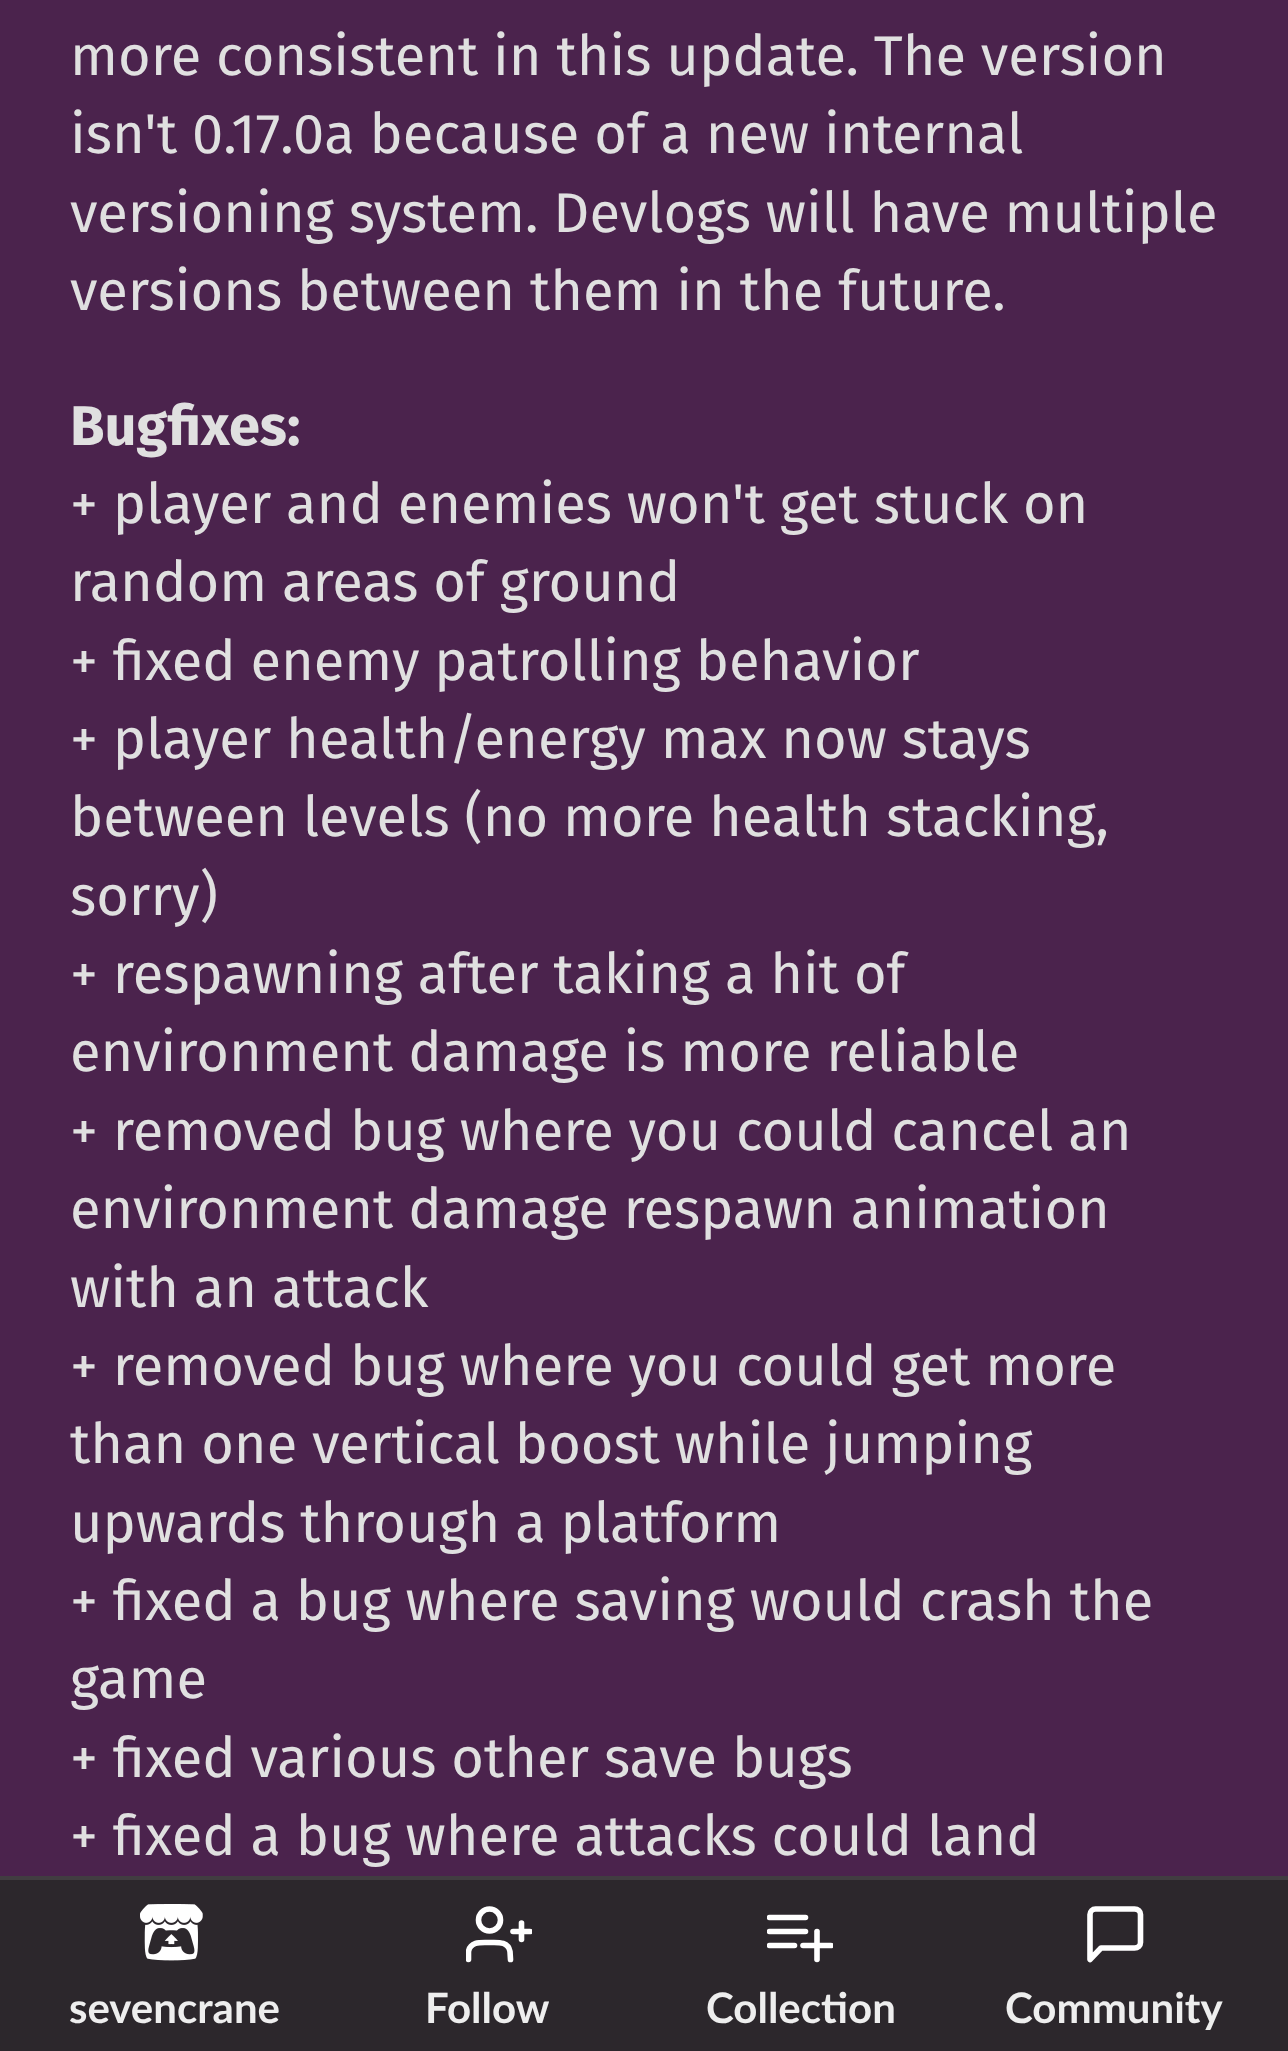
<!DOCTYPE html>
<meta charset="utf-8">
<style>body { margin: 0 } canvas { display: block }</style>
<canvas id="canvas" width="1288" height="2051"></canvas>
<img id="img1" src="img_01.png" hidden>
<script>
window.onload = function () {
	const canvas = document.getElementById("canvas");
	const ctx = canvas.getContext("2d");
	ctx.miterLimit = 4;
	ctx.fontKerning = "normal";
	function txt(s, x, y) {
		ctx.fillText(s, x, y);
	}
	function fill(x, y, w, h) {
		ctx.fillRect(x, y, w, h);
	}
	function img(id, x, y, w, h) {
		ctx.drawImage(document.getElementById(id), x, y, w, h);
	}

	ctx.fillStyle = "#4B234D";
	fill(0, 0, 1288, 2051);
	ctx.fillStyle = "#2C272C";
	fill(0, 1880, 1288, 171);
	ctx.fillStyle = "#413D41";
	fill(0, 1876, 1288, 4);
	img("img1", 140, 1904, 63, 57);
	ctx.save();
	ctx.beginPath();
	ctx.rect(466, 1901, 66, 66);
	ctx.clip();
	ctx.beginPath();
	ctx.moveTo(510.5, 1959.5);
	ctx.lineTo(510, 1951.5);
	ctx.bezierCurveTo(508, 1941, 497.5, 1942.5, 489.5, 1942.5);
	ctx.bezierCurveTo(481.5, 1942.5, 470.5, 1941, 468.5, 1951.5);
	ctx.lineTo(468.5, 1959.5);
	ctx.strokeStyle = "#FFFFFF";
	ctx.lineWidth = 5.6;
	ctx.lineCap = "round";
	ctx.lineJoin = "round";
	ctx.stroke();
	ctx.restore();
	ctx.beginPath();
	ctx.arc(489.5, 1920, 11, 0, Math.PI * 2);
	ctx.strokeStyle = "#FFFFFF";
	ctx.lineWidth = 5.6;
	ctx.stroke();
	ctx.beginPath();
	ctx.moveTo(521.5, 1923);
	ctx.lineTo(521.5, 1939.5);
	ctx.lineCap = "round";
	ctx.lineJoin = "round";
	ctx.stroke();
	ctx.save();
	ctx.beginPath();
	ctx.rect(466, 1901, 66, 66);
	ctx.clip();
	ctx.beginPath();
	ctx.moveTo(530, 1931.5);
	ctx.lineTo(513, 1931.5);
	ctx.stroke();
	ctx.restore();
	ctx.save();
	ctx.beginPath();
	ctx.rect(767, 1901, 66, 66);
	ctx.clip();
	ctx.beginPath();
	ctx.moveTo(769.5, 1917.5);
	ctx.lineTo(805.5, 1917.5);
	ctx.moveTo(769.5, 1931.5);
	ctx.lineTo(805.5, 1931.5);
	ctx.moveTo(769.5, 1945.5);
	ctx.lineTo(794.5, 1945.5);
	ctx.stroke();
	ctx.restore();
	ctx.beginPath();
	ctx.moveTo(817, 1931.5);
	ctx.lineTo(817, 1959.5);
	ctx.stroke();
	ctx.save();
	ctx.beginPath();
	ctx.rect(767, 1901, 66, 66);
	ctx.clip();
	ctx.beginPath();
	ctx.moveTo(803, 1945.5);
	ctx.lineTo(831, 1945.5);
	ctx.stroke();
	ctx.restore();
	ctx.beginPath();
	ctx.moveTo(1140.5, 1942.5);
	ctx.bezierCurveTo(1140.5, 1945.5, 1138, 1948, 1134.5, 1948);
	ctx.lineTo(1101, 1948);
	ctx.lineTo(1090, 1959.5);
	ctx.lineTo(1090, 1914.5);
	ctx.bezierCurveTo(1090, 1911.5, 1092.5, 1909, 1095.5, 1909);
	ctx.lineTo(1134.5, 1909);
	ctx.bezierCurveTo(1138, 1909, 1140.5, 1911.5, 1140.5, 1914.5);
	ctx.closePath();
	ctx.stroke();
	ctx.font = "56px Fira Sans";
	ctx.fillStyle = "#E0E0E0";
	txt("more consistent in this update. The version", 70, 75);
	txt("isn't 0.17.0a because of a new internal", 70, 153);
	txt("versioning system. Devlogs will have multiple", 70, 232);
	txt("versions between them in the future.", 70, 310);
	ctx.font = "bold 56px Fira Sans";
	txt("Bugfixes:", 70, 445);
	ctx.font = "56px Fira Sans";
	txt("+ player and enemies won't get stuck on", 70, 523);
	txt("random areas of ground", 70, 601);
	txt("+ fixed enemy patrolling behavior", 70, 680);
	txt("+ player health/energy max now stays", 70, 758);
	txt("between levels (no more health stacking,", 70, 836);
	txt("sorry)", 70, 915);
	txt("+ respawning after taking a hit of", 70, 993);
	txt("environment damage is more reliable", 70, 1071);
	txt("+ removed bug where you could cancel an", 70, 1150);
	txt("environment damage respawn animation", 70, 1228);
	txt("with an attack", 70, 1307);
	txt("+ removed bug where you could get more", 70, 1385);
	txt("than one vertical boost while jumping", 70, 1463);
	txt("upwards through a platform", 70, 1542);
	txt("+ fixed a bug where saving would crash the", 70, 1620);
	txt("game", 70, 1698);
	txt("+ fixed various other save bugs", 70, 1777);
	txt("+ fixed a bug where attacks could land", 70, 1855);
	ctx.font = "bold 42px Lato";
	ctx.fillStyle = "#EEEEEE";
	txt("sevencrane", 69, 2023);
	txt("Follow", 425, 2023);
	txt("Collection", 706, 2023);
	txt("Community", 1005, 2023);
};
</script>
